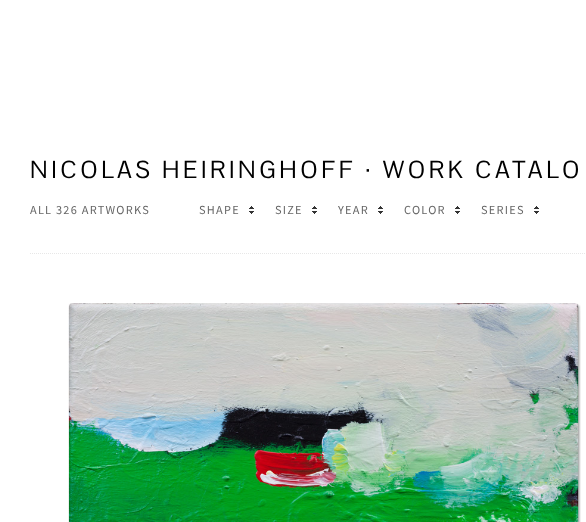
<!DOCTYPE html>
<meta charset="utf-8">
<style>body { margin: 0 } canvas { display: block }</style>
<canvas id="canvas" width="586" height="522"></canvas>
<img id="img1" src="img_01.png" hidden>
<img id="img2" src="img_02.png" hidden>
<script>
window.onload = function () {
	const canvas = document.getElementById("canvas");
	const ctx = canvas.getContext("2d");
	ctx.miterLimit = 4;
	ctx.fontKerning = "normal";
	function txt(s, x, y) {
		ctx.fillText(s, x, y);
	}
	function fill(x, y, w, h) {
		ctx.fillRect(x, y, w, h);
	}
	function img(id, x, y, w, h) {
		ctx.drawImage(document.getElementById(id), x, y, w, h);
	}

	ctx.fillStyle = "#FFFFFF";
	fill(0, 0, 586, 522);
	img("img1", 249, 206, 5, 8);
	img("img1", 312, 206, 5, 8);
	img("img1", 378, 206, 5, 8);
	img("img1", 455, 206, 5, 8);
	img("img1", 534, 206, 5, 8);
	ctx.beginPath();
	ctx.moveTo(30, 253.5);
	ctx.lineTo(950, 253.5);
	ctx.strokeStyle = "#E7E7E7";
	ctx.setLineDash([1, 1]);
	ctx.stroke();
	img("img2", 68, 303, 513, 219);
	ctx.letterSpacing = "3.6px";
	ctx.font = "24px Pontano Sans";
	ctx.fillStyle = "#000000";
	txt("NICOLAS HEIRINGHOFF · WORK CATALO", 30, 178);
	ctx.letterSpacing = "1.25px";
	ctx.font = "12.25px Source Sans Pro";
	ctx.fillStyle = "#666666";
	txt("ALL 326 ARTWORKS", 30, 214);
	txt("SHAPE", 199, 214);
	txt("SIZE", 275, 214);
	txt("YEAR", 338, 214);
	txt("COLOR", 404, 214);
	txt("SERIES", 481, 214);
};
</script>
